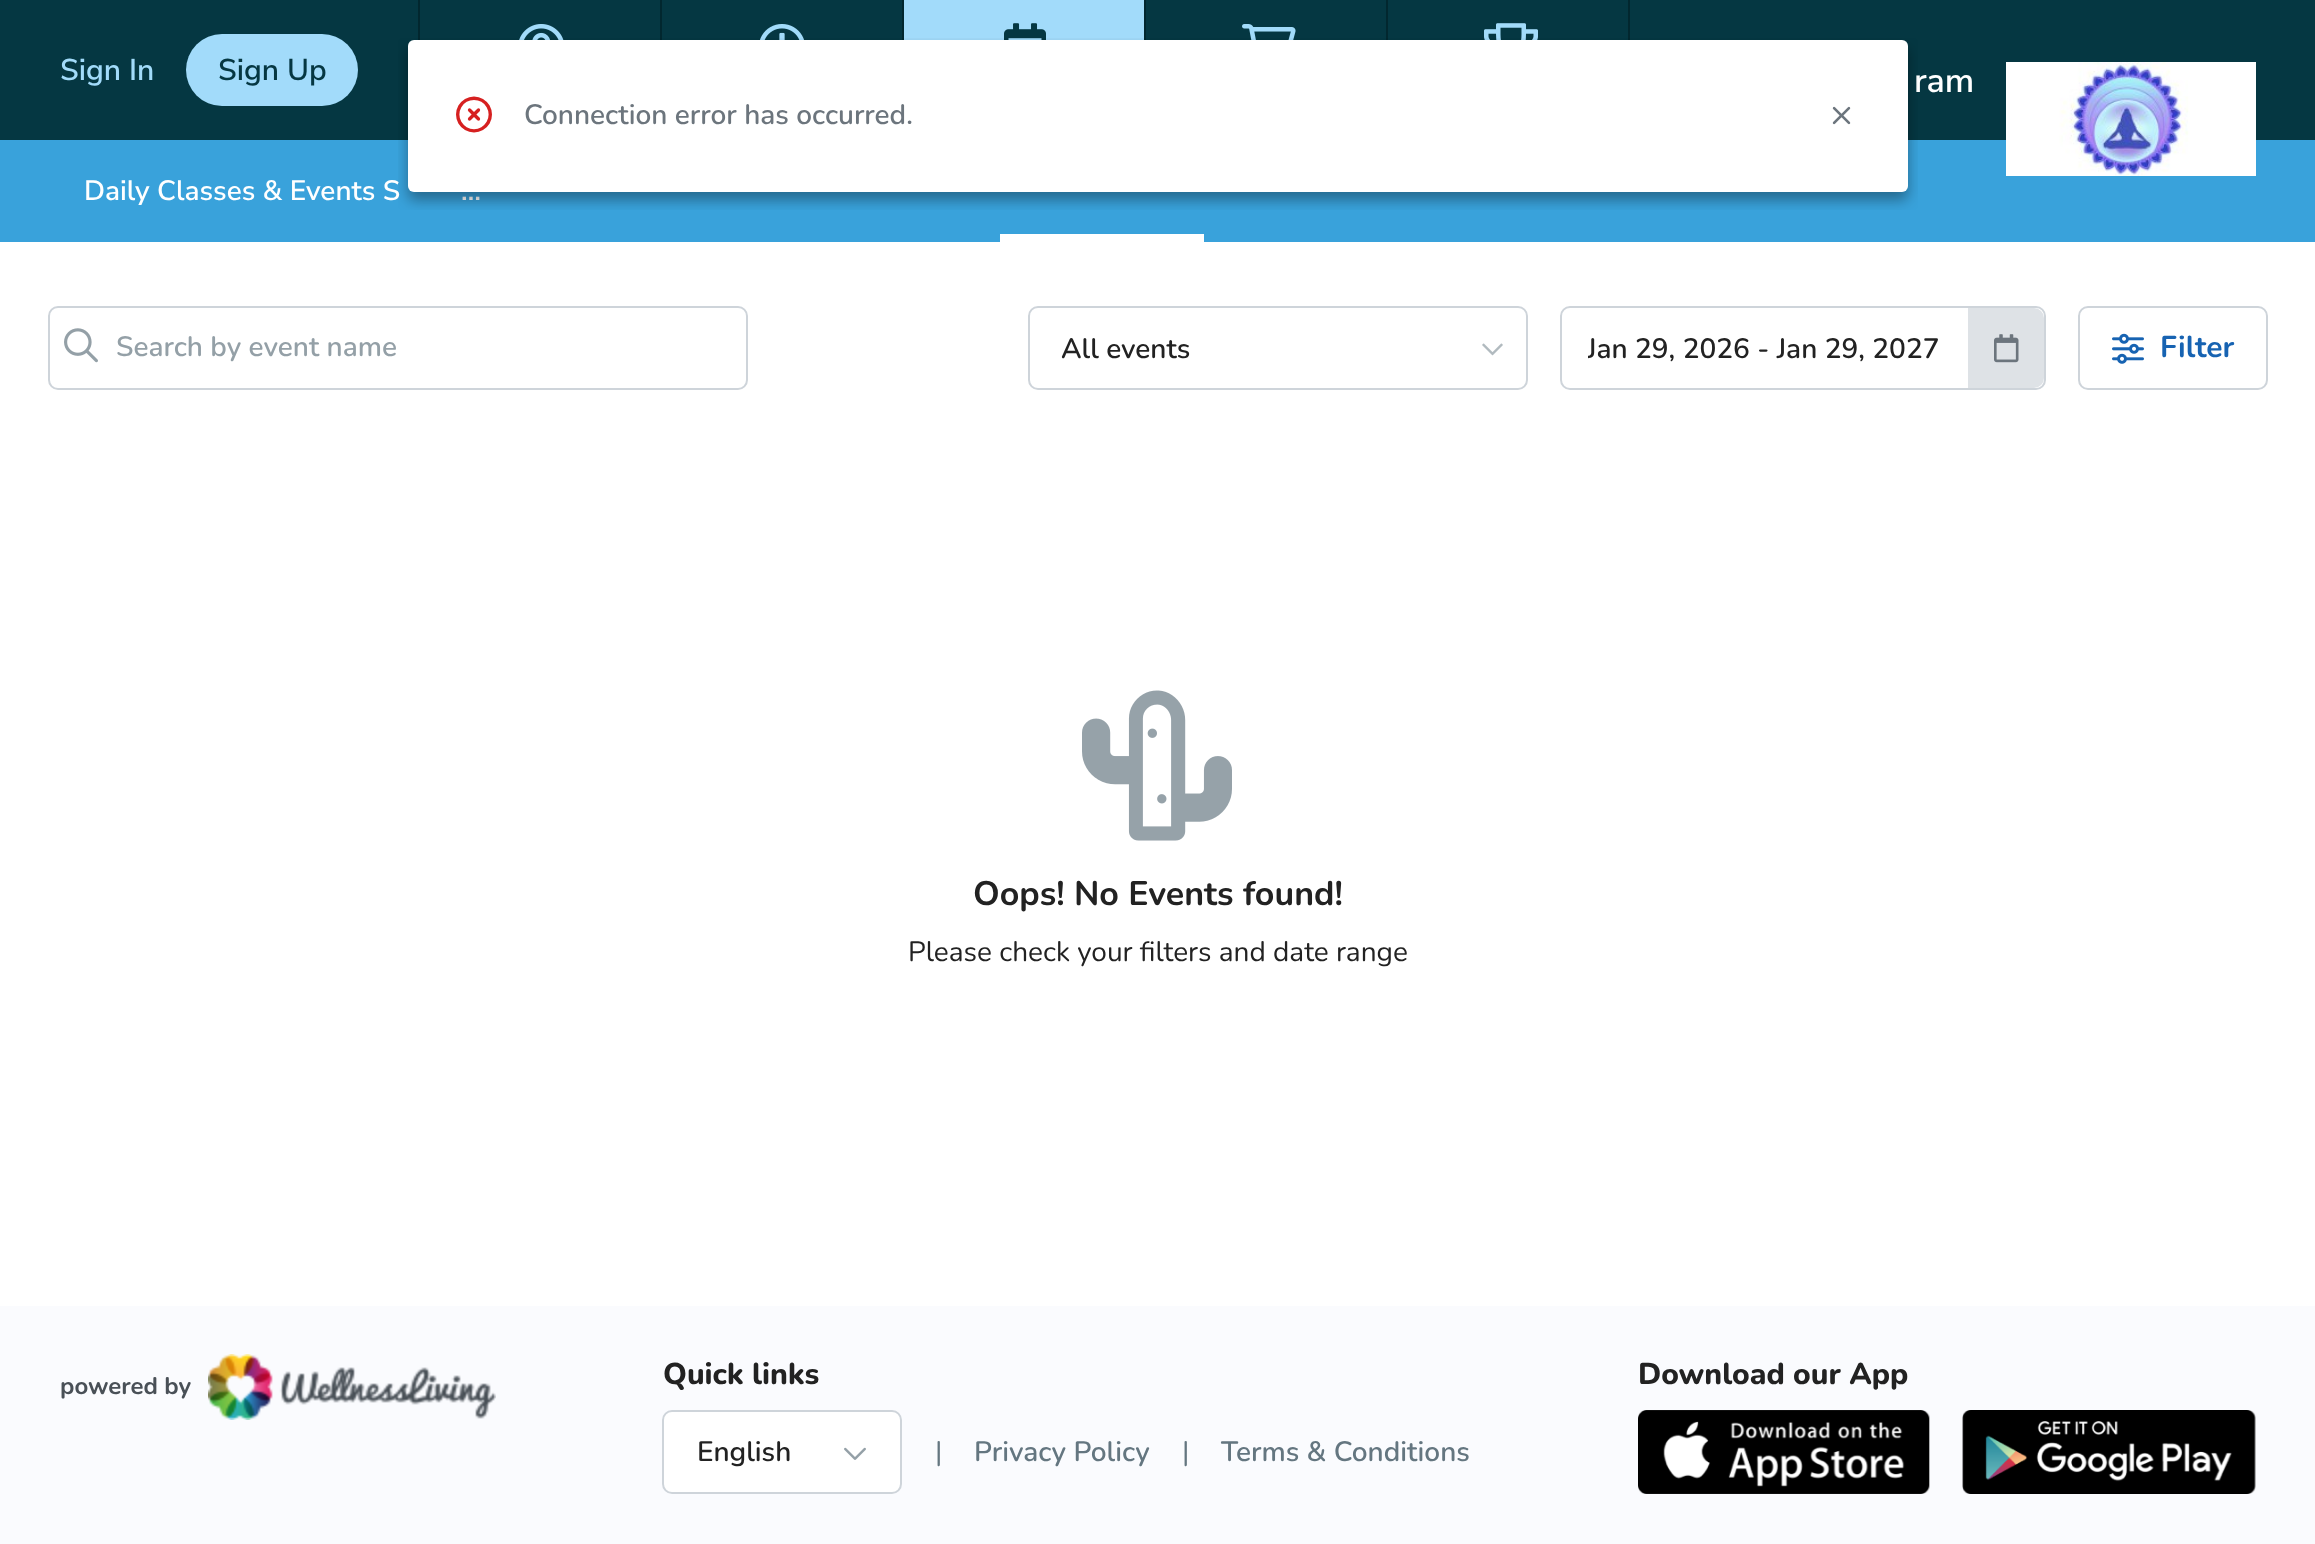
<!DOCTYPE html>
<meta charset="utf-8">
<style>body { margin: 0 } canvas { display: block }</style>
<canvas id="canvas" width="2315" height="1544"></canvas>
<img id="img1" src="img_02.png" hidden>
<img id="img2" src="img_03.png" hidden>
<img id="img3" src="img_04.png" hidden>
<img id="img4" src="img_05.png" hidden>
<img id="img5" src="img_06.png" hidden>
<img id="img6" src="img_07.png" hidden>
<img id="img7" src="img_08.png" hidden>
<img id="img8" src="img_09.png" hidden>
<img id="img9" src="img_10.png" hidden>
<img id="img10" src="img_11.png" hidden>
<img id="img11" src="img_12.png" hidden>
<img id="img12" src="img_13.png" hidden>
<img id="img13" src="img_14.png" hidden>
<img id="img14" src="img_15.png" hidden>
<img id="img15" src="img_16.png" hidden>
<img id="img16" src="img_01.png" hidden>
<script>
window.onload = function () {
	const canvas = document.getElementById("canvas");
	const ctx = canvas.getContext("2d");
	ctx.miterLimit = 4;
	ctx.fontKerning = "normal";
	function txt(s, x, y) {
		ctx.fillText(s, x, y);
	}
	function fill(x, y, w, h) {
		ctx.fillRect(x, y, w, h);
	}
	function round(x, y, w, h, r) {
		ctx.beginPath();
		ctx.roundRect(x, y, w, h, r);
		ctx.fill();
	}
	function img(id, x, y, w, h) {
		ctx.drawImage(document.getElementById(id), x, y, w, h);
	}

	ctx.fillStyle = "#FFFFFF";
	fill(0, 0, 2315, 1544);
	ctx.fillStyle = "#053742";
	fill(0, 0, 2315, 140);
	ctx.fillStyle = "#02272F";
	fill(418, 0, 2, 40);
	fill(660, 0, 2, 40);
	img("img1", 519, 24, 45, 16);
	fill(902, 0, 2, 40);
	img("img2", 760, 24, 44, 16);
	fill(1144, 0, 2, 40);
	ctx.fillStyle = "#A2DBFA";
	fill(904, 0, 240, 40);
	img("img3", 1004, 23, 42, 17);
	ctx.fillStyle = "#02272F";
	fill(1386, 0, 2, 40);
	img("img4", 1242, 24, 54, 16);
	fill(1628, 0, 2, 40);
	img("img5", 1484, 23, 54, 17);
	ctx.fillStyle = "#A2DBFA";
	round(186, 34, 172, 72, 36);
	ctx.fillStyle = "#39A2DB";
	fill(0, 140, 2315, 102);
	img("img6", 2006, 62, 250, 114);
	ctx.fillStyle = "#FFFFFF";
	fill(1000, 234, 204, 8);
	ctx.beginPath();
	ctx.roundRect(49, 307, 698, 82, 9);
	ctx.strokeStyle = "#CED4DA";
	ctx.lineWidth = 2;
	ctx.stroke();
	img("img7", 64, 328, 34, 35);
	ctx.beginPath();
	ctx.roundRect(1029, 307, 498, 82, 9);
	ctx.stroke();
	img("img8", 1482, 343, 21, 13);
	ctx.beginPath();
	ctx.roundRect(1561, 307, 484, 82, 9);
	ctx.stroke();
	ctx.fillStyle = "#DEE2E6";
	ctx.beginPath();
	ctx.roundRect(1968, 308, 76, 80, [0, 10, 10, 0]);
	ctx.fill();
	img("img9", 1994, 334, 25, 29);
	ctx.beginPath();
	ctx.roundRect(2079, 307, 188, 82, 9);
	ctx.stroke();
	img("img10", 2112, 333, 32, 31);
	img("img11", 1082, 690, 150, 151);
	ctx.fillStyle = "#FAFBFE";
	fill(0, 1306, 2315, 238);
	img("img12", 208, 1354, 288, 66);
	ctx.fillStyle = "#FFFFFF";
	ctx.beginPath();
	ctx.roundRect(663, 1411, 238, 82, 9);
	ctx.fill();
	ctx.stroke();
	img("img13", 844, 1447, 22, 13);
	img("img14", 1638, 1410, 292, 84);
	img("img15", 1962, 1410, 294, 84);
	ctx.font = "600 30px Nunito Sans";
	ctx.fillStyle = "#A2DBFA";
	txt("Sign In", 60, 80);
	ctx.fillStyle = "#053742";
	txt("Sign Up", 218, 80);
	ctx.font = "600 34px Nunito Sans";
	ctx.fillStyle = "#FFFFFF";
	txt("ram", 1914, 92);
	ctx.font = "600 28px Nunito Sans";
	txt("Daily Classes & Events S", 84, 200);
	txt("…", 461, 200);
	img("img16", 398, 38, 1520, 172);
	ctx.font = "600 28px Nunito";
	ctx.fillStyle = "#94A0A7";
	txt("Search by event name", 116, 356);
	ctx.fillStyle = "#222222";
	txt("All events", 1061, 358);
	ctx.save();
	ctx.beginPath();
	ctx.rect(1588, 330, 352, 38);
	ctx.clip();
	txt("Jan 29, 2026 - Jan 29, 2027", 1587, 358);
	ctx.restore();
	ctx.font = "bold 30px Nunito";
	ctx.fillStyle = "#1763B2";
	txt("Filter", 2160, 357);
	ctx.font = "bold 34px Nunito";
	ctx.fillStyle = "#222222";
	txt("Oops! No Events found!", 973, 905);
	ctx.font = "28px Nunito";
	txt("Please check your filters and date range", 908, 961);
	ctx.font = "bold 24px Nunito";
	ctx.fillStyle = "#495057";
	txt("powered by", 60, 1394);
	ctx.font = "800 30px Nunito";
	ctx.fillStyle = "#222222";
	txt("Quick links", 663, 1384);
	ctx.font = "600 28px Nunito";
	txt("English", 697, 1461);
	ctx.font = "28px Nunito";
	ctx.fillStyle = "#647680";
	txt("|", 935, 1461);
	ctx.font = "600 28px Nunito";
	txt("Privacy Policy", 974, 1461);
	ctx.font = "28px Nunito";
	txt("|", 1182, 1461);
	ctx.font = "600 28px Nunito";
	txt("Terms & Conditions", 1221, 1461);
	ctx.font = "800 30px Nunito";
	ctx.fillStyle = "#222222";
	txt("Download our App", 1638, 1384);
};
</script>
